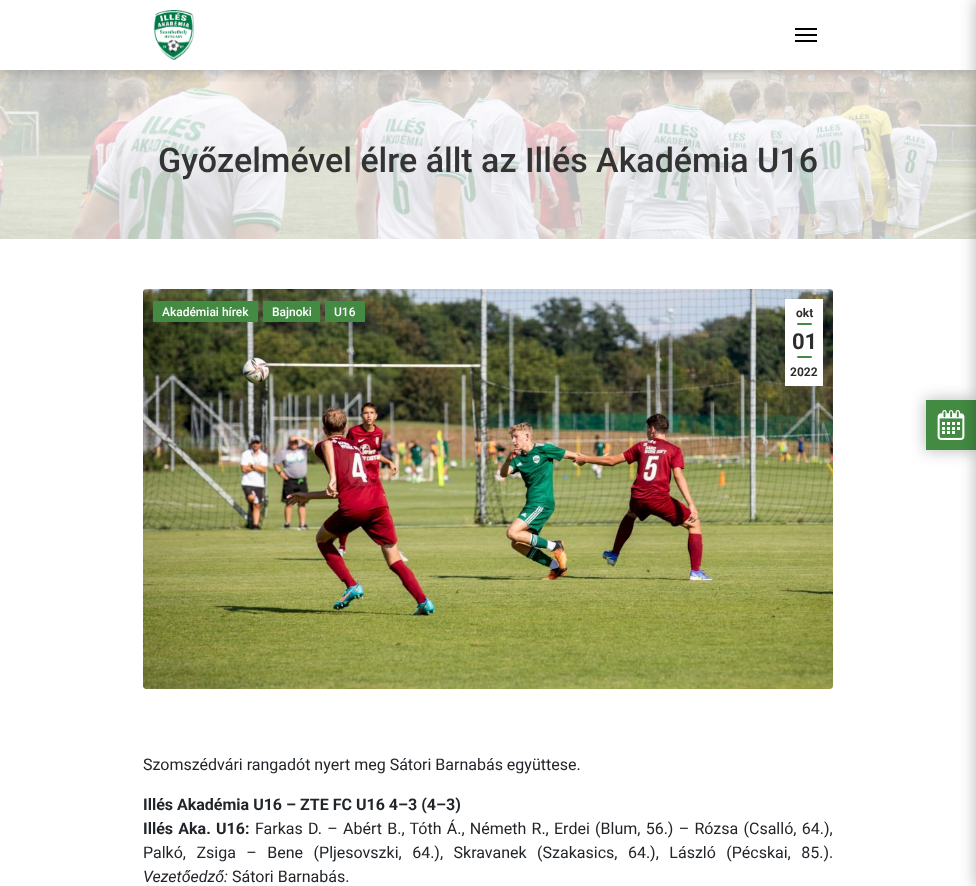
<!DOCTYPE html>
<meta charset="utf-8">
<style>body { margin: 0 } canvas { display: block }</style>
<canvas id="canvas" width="976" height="886"></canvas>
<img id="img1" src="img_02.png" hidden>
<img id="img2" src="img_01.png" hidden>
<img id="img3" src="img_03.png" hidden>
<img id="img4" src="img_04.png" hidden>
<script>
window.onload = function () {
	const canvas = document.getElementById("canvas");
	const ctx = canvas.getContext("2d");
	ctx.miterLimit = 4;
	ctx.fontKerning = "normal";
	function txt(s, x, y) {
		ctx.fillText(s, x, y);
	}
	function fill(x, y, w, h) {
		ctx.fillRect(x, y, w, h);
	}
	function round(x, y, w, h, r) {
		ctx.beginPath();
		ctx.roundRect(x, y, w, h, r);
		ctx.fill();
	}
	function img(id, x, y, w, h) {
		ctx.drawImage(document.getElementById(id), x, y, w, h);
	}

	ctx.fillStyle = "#FFFFFF";
	fill(0, 0, 976, 886);
	img("img1", 0, 70, 976, 169);
	ctx.save();
	ctx.beginPath();
	ctx.rect(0, 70, 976, 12);
	ctx.clip();
	ctx.fillStyle = "rgba(0, 0, 0, 0.25)";
	ctx.filter = "blur(7.5px)";
	ctx.beginPath();
	ctx.rect(-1, -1, 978, 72);
	ctx.fill();
	ctx.filter = "none";
	ctx.restore();
	img("img2", 153, 10, 41, 50);
	ctx.fillStyle = "#000000";
	fill(795, 28, 22, 2);
	fill(795, 34, 22, 2);
	fill(795, 40, 22, 2);
	img("img3", 143, 289, 690, 400);
	ctx.fillStyle = "#438A43";
	fill(153, 301, 105, 21);
	fill(263, 301, 57, 21);
	fill(325, 301, 40, 21);
	ctx.fillStyle = "#FFFFFF";
	fill(785, 299, 38, 87);
	ctx.fillStyle = "#438A43";
	round(797, 323, 15, 2, 1);
	round(797, 356, 15, 2, 1);
	ctx.fillStyle = "rgba(0, 0, 0, 0.25)";
	ctx.filter = "blur(7.5px)";
	ctx.beginPath();
	ctx.rect(925, 399, 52, 52);
	ctx.fill();
	ctx.filter = "none";
	ctx.fillStyle = "#438A43";
	fill(926, 400, 50, 50);
	img("img4", 937, 410, 28, 30);
	ctx.fillStyle = "rgba(0, 0, 0, 0.25)";
	ctx.filter = "blur(7.5px)";
	ctx.beginPath();
	ctx.rect(975, -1, 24, 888);
	ctx.fill();
	ctx.filter = "none";
	ctx.font = "500 34px Roboto";
	ctx.fillStyle = "#333333";
	txt("Győzelmével élre állt az Illés Akadémia U16", 158, 172);
	ctx.font = "500 12px Roboto";
	ctx.fillStyle = "#FFFFFF";
	txt("Akadémiai hírek", 162, 316);
	txt("Bajnoki", 272, 316);
	txt("U16", 334, 316);
	ctx.font = "bold 12px Roboto";
	ctx.fillStyle = "#2D2D2D";
	txt("okt", 796, 317);
	ctx.font = "bold 22px Roboto";
	txt("01", 792, 349);
	ctx.font = "bold 12px Roboto";
	txt("2022", 790, 376);
	ctx.font = "16px Roboto";
	ctx.fillStyle = "#212529";
	txt("Szomszédvári rangadót nyert meg Sátori Barnabás együttese.", 143, 770);
	ctx.font = "bold 16px Roboto";
	txt("Illés Akadémia U16 – ZTE FC U16 4–3 (4–3)", 143, 810);
	ctx.wordSpacing = "1.3px";
	txt("Illés Aka. U16:", 143, 834);
	ctx.font = "16px Roboto";
	txt("Farkas D. – Abért B., Tóth Á., Németh R., Erdei (Blum, 56.) – Rózsa (Csalló, 64.),", 255, 834);
	ctx.wordSpacing = "6.5px";
	txt("Palkó, Zsiga – Bene (Pljesovszki, 64.), Skravanek (Szakasics, 64.), László (Pécskai, 85.).", 143, 858);
	ctx.wordSpacing = "0px";
	ctx.font = "italic 16px Roboto";
	txt("Vezetőedző:", 143, 882);
	ctx.font = "16px Roboto";
	txt("Sátori Barnabás.", 232, 882);
};
</script>
